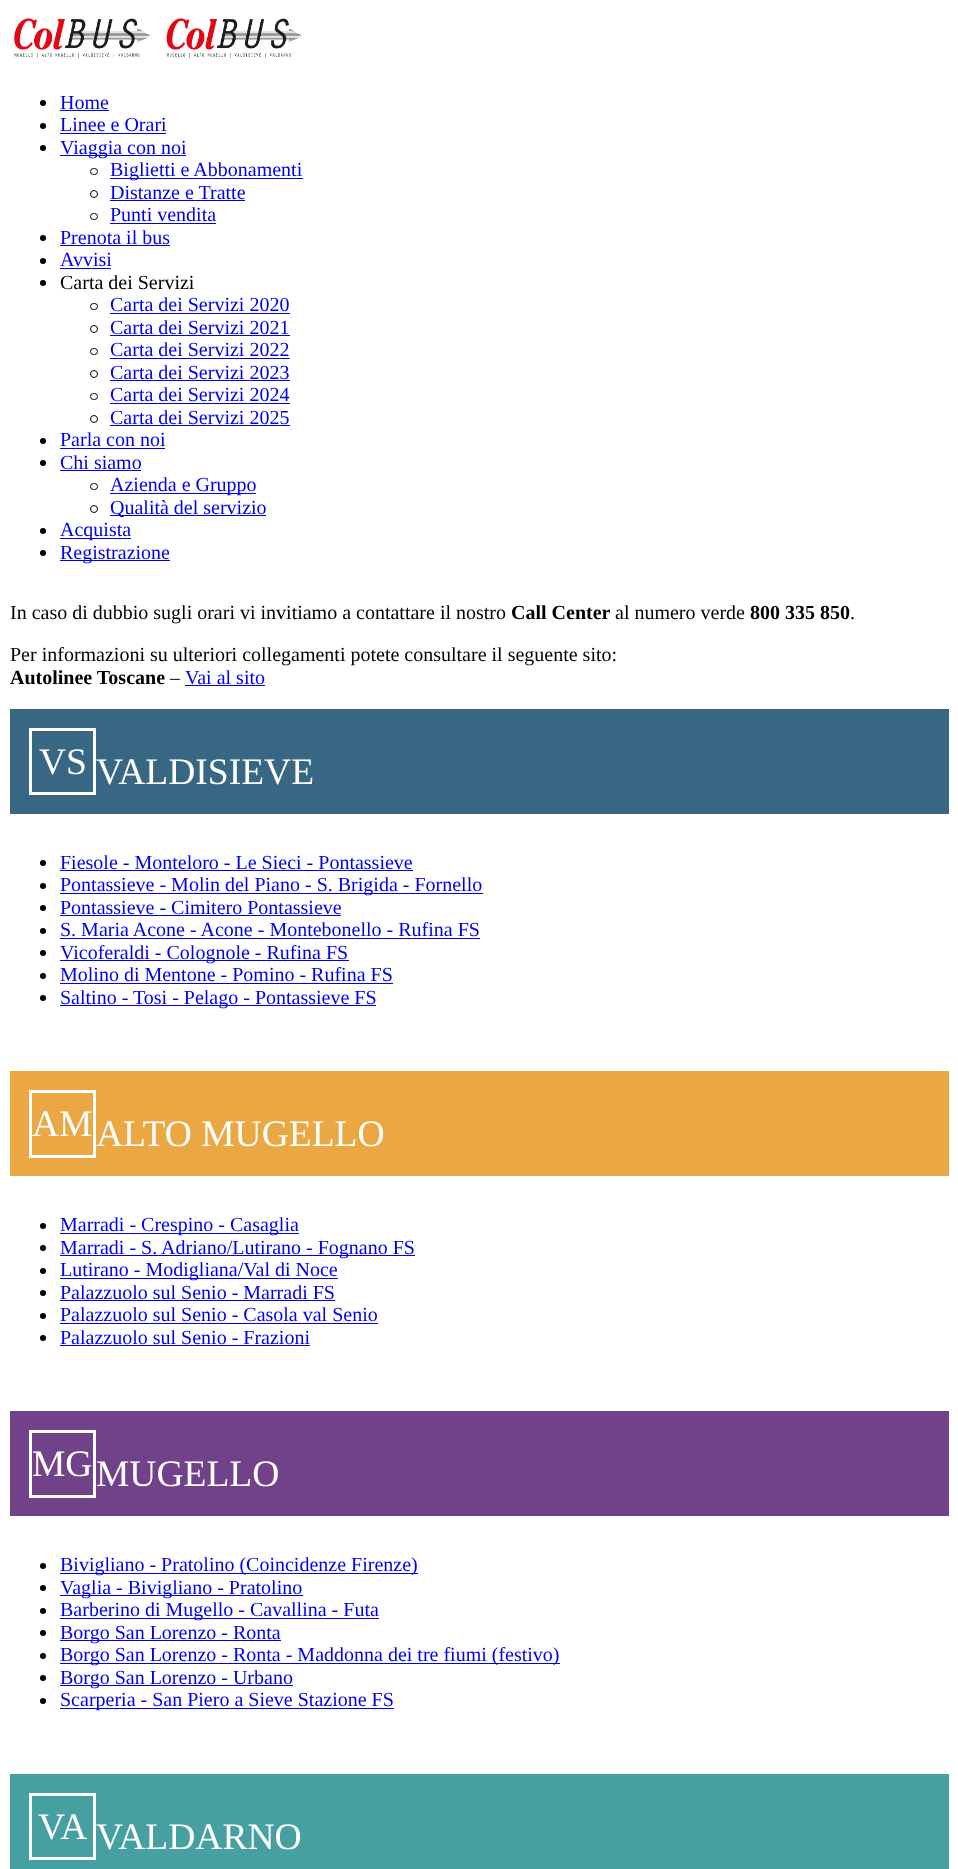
<!DOCTYPE html>
<meta charset="utf-8">
<style>body { margin: 0 } canvas { display: block }</style>
<canvas id="canvas" width="958" height="1869"></canvas>
<img id="img1" src="img_01.png" hidden>
<img id="img2" src="img_02.png" hidden>
<script>
window.onload = function () {
	const canvas = document.getElementById("canvas");
	const ctx = canvas.getContext("2d");
	ctx.miterLimit = 4;
	ctx.fontKerning = "normal";
	function txt(s, x, y) {
		ctx.fillText(s, x, y);
	}
	function fill(x, y, w, h) {
		ctx.fillRect(x, y, w, h);
	}
	function img(id, x, y, w, h) {
		ctx.drawImage(document.getElementById(id), x, y, w, h);
	}

	ctx.fillStyle = "#FFFFFF";
	fill(0, 0, 958, 1869);
	img("img1", 14, 18, 137, 40);
	img("img2", 166, 18, 136, 40);
	ctx.fillStyle = "#000000";
	ctx.beginPath();
	ctx.arc(43, 103, 3, 0, Math.PI * 2);
	ctx.fill();
	ctx.fillStyle = "#0000EE";
	fill(60, 110, 49, 1);
	ctx.fillStyle = "#000000";
	ctx.beginPath();
	ctx.arc(43, 126, 3, 0, Math.PI * 2);
	ctx.fill();
	ctx.fillStyle = "#0000EE";
	fill(60, 133, 106, 1);
	ctx.fillStyle = "#000000";
	ctx.beginPath();
	ctx.arc(43, 148, 3, 0, Math.PI * 2);
	ctx.fill();
	ctx.fillStyle = "#0000EE";
	fill(60, 155, 126, 1);
	ctx.beginPath();
	ctx.roundRect(90.5, 168.5, 7, 6, 3);
	ctx.strokeStyle = "#000000";
	ctx.stroke();
	fill(110, 178, 193, 1);
	ctx.beginPath();
	ctx.arc(94, 194, 3.5, 0, Math.PI * 2);
	ctx.stroke();
	fill(110, 200, 135, 1);
	ctx.beginPath();
	ctx.roundRect(90.5, 213.5, 7, 6, 3);
	ctx.stroke();
	fill(110, 223, 106, 1);
	ctx.fillStyle = "#000000";
	ctx.beginPath();
	ctx.arc(43, 238, 3, 0, Math.PI * 2);
	ctx.fill();
	ctx.fillStyle = "#0000EE";
	fill(60, 245, 110, 1);
	ctx.fillStyle = "#000000";
	ctx.beginPath();
	ctx.arc(43, 261, 3, 0, Math.PI * 2);
	ctx.fill();
	ctx.fillStyle = "#0000EE";
	fill(60, 268, 51, 1);
	ctx.fillStyle = "#000000";
	ctx.beginPath();
	ctx.arc(43, 283, 3, 0, Math.PI * 2);
	ctx.fill();
	ctx.beginPath();
	ctx.roundRect(90.5, 303.5, 7, 6, 3);
	ctx.stroke();
	ctx.fillStyle = "#0000EE";
	fill(110, 313, 180, 1);
	ctx.beginPath();
	ctx.arc(94, 329, 3.5, 0, Math.PI * 2);
	ctx.stroke();
	fill(110, 335, 180, 1);
	ctx.beginPath();
	ctx.roundRect(90.5, 348.5, 7, 6, 3);
	ctx.stroke();
	fill(110, 358, 180, 1);
	ctx.beginPath();
	ctx.arc(94, 374, 3.5, 0, Math.PI * 2);
	ctx.stroke();
	fill(110, 380, 180, 1);
	ctx.beginPath();
	ctx.roundRect(90.5, 393.5, 7, 6, 3);
	ctx.stroke();
	fill(110, 403, 180, 1);
	ctx.beginPath();
	ctx.arc(94, 419, 3.5, 0, Math.PI * 2);
	ctx.stroke();
	fill(110, 425, 180, 1);
	ctx.fillStyle = "#000000";
	ctx.beginPath();
	ctx.arc(43, 441, 3, 0, Math.PI * 2);
	ctx.fill();
	ctx.fillStyle = "#0000EE";
	fill(60, 448, 105, 1);
	ctx.fillStyle = "#000000";
	ctx.beginPath();
	ctx.arc(43, 463, 3, 0, Math.PI * 2);
	ctx.fill();
	ctx.fillStyle = "#0000EE";
	fill(60, 470, 81, 1);
	ctx.beginPath();
	ctx.roundRect(90.5, 483.5, 7, 6, 3);
	ctx.stroke();
	fill(110, 493, 146, 1);
	ctx.beginPath();
	ctx.arc(94, 509, 3.5, 0, Math.PI * 2);
	ctx.stroke();
	fill(110, 515, 156, 1);
	ctx.fillStyle = "#000000";
	ctx.beginPath();
	ctx.arc(43, 531, 3, 0, Math.PI * 2);
	ctx.fill();
	ctx.fillStyle = "#0000EE";
	fill(60, 538, 71, 1);
	ctx.fillStyle = "#000000";
	ctx.beginPath();
	ctx.arc(43, 553, 3, 0, Math.PI * 2);
	ctx.fill();
	ctx.fillStyle = "#0000EE";
	fill(60, 560, 110, 1);
	fill(185, 685, 80, 1);
	ctx.fillStyle = "#376783";
	fill(10, 709, 939, 105);
	ctx.strokeStyle = "#FFFFFF";
	ctx.lineWidth = 3;
	ctx.strokeRect(30.5, 729.5, 64, 64);
	ctx.fillStyle = "#000000";
	ctx.beginPath();
	ctx.arc(43, 863, 3, 0, Math.PI * 2);
	ctx.fill();
	ctx.fillStyle = "#0000EE";
	fill(60, 870, 353, 1);
	ctx.fillStyle = "#000000";
	ctx.beginPath();
	ctx.arc(43, 886, 3, 0, Math.PI * 2);
	ctx.fill();
	ctx.fillStyle = "#0000EE";
	fill(60, 893, 423, 1);
	ctx.fillStyle = "#000000";
	ctx.beginPath();
	ctx.arc(43, 908, 3, 0, Math.PI * 2);
	ctx.fill();
	ctx.fillStyle = "#0000EE";
	fill(60, 915, 281, 1);
	ctx.fillStyle = "#000000";
	ctx.beginPath();
	ctx.arc(43, 931, 3, 0, Math.PI * 2);
	ctx.fill();
	ctx.fillStyle = "#0000EE";
	fill(60, 938, 420, 1);
	ctx.fillStyle = "#000000";
	ctx.beginPath();
	ctx.arc(43, 953, 3, 0, Math.PI * 2);
	ctx.fill();
	ctx.fillStyle = "#0000EE";
	fill(60, 960, 289, 1);
	ctx.fillStyle = "#000000";
	ctx.beginPath();
	ctx.arc(43, 976, 3, 0, Math.PI * 2);
	ctx.fill();
	ctx.fillStyle = "#0000EE";
	fill(60, 983, 333, 1);
	ctx.fillStyle = "#000000";
	ctx.beginPath();
	ctx.arc(43, 998, 3, 0, Math.PI * 2);
	ctx.fill();
	ctx.fillStyle = "#0000EE";
	fill(60, 1005, 316, 1);
	ctx.fillStyle = "#EBA742";
	fill(10, 1071, 939, 105);
	ctx.strokeRect(30.5, 1091.5, 64, 65);
	ctx.fillStyle = "#000000";
	ctx.beginPath();
	ctx.arc(43, 1226, 3, 0, Math.PI * 2);
	ctx.fill();
	ctx.fillStyle = "#0000EE";
	fill(60, 1233, 239, 1);
	ctx.fillStyle = "#000000";
	ctx.beginPath();
	ctx.arc(43, 1248, 3, 0, Math.PI * 2);
	ctx.fill();
	ctx.fillStyle = "#0000EE";
	fill(60, 1255, 355, 1);
	ctx.fillStyle = "#000000";
	ctx.beginPath();
	ctx.arc(43, 1271, 3, 0, Math.PI * 2);
	ctx.fill();
	ctx.fillStyle = "#0000EE";
	fill(60, 1278, 278, 1);
	ctx.fillStyle = "#000000";
	ctx.beginPath();
	ctx.arc(43, 1293, 3, 0, Math.PI * 2);
	ctx.fill();
	ctx.fillStyle = "#0000EE";
	fill(60, 1300, 275, 1);
	ctx.fillStyle = "#000000";
	ctx.beginPath();
	ctx.arc(43, 1316, 3, 0, Math.PI * 2);
	ctx.fill();
	ctx.fillStyle = "#0000EE";
	fill(60, 1323, 318, 1);
	ctx.fillStyle = "#000000";
	ctx.beginPath();
	ctx.arc(43, 1338, 3, 0, Math.PI * 2);
	ctx.fill();
	ctx.fillStyle = "#0000EE";
	fill(60, 1345, 250, 1);
	ctx.fillStyle = "#71428A";
	fill(10, 1411, 939, 105);
	ctx.strokeRect(30.5, 1431.5, 64, 65);
	ctx.fillStyle = "#000000";
	ctx.beginPath();
	ctx.arc(43, 1566, 3, 0, Math.PI * 2);
	ctx.fill();
	ctx.fillStyle = "#0000EE";
	fill(60, 1573, 358, 1);
	ctx.fillStyle = "#000000";
	ctx.beginPath();
	ctx.arc(43, 1588, 3, 0, Math.PI * 2);
	ctx.fill();
	ctx.fillStyle = "#0000EE";
	fill(60, 1595, 243, 1);
	ctx.fillStyle = "#000000";
	ctx.beginPath();
	ctx.arc(43, 1611, 3, 0, Math.PI * 2);
	ctx.fill();
	ctx.fillStyle = "#0000EE";
	fill(60, 1618, 319, 1);
	ctx.fillStyle = "#000000";
	ctx.beginPath();
	ctx.arc(43, 1633, 3, 0, Math.PI * 2);
	ctx.fill();
	ctx.fillStyle = "#0000EE";
	fill(60, 1640, 221, 1);
	ctx.fillStyle = "#000000";
	ctx.beginPath();
	ctx.arc(43, 1656, 3, 0, Math.PI * 2);
	ctx.fill();
	ctx.fillStyle = "#0000EE";
	fill(60, 1663, 500, 1);
	ctx.fillStyle = "#000000";
	ctx.beginPath();
	ctx.arc(43, 1678, 3, 0, Math.PI * 2);
	ctx.fill();
	ctx.fillStyle = "#0000EE";
	fill(60, 1685, 233, 1);
	ctx.fillStyle = "#000000";
	ctx.beginPath();
	ctx.arc(43, 1701, 3, 0, Math.PI * 2);
	ctx.fill();
	ctx.fillStyle = "#0000EE";
	fill(60, 1708, 334, 1);
	ctx.fillStyle = "#46A0A1";
	fill(10, 1774, 939, 95);
	ctx.strokeRect(30.5, 1794.5, 64, 64);
	ctx.font = "20px Liberation Serif";
	ctx.fillStyle = "#0000EE";
	txt("Home", 60, 109);
	txt("Linee e Orari", 60, 131);
	txt("Viaggia con noi", 60, 154);
	txt("Biglietti e Abbonamenti", 110, 176);
	txt("Distanze e Tratte", 110, 199);
	txt("Punti vendita", 110, 221);
	txt("Prenota il bus", 60, 244);
	txt("Avvisi", 60, 266);
	ctx.fillStyle = "#000000";
	txt("Carta dei Servizi", 60, 289);
	ctx.fillStyle = "#0000EE";
	txt("Carta dei Servizi 2020", 110, 311);
	txt("Carta dei Servizi 2021", 110, 334);
	txt("Carta dei Servizi 2022", 110, 356);
	txt("Carta dei Servizi 2023", 110, 379);
	txt("Carta dei Servizi 2024", 110, 401);
	txt("Carta dei Servizi 2025", 110, 424);
	txt("Parla con noi", 60, 446);
	txt("Chi siamo", 60, 469);
	txt("Azienda e Gruppo", 110, 491);
	txt("Qualità del servizio", 110, 514);
	txt("Acquista", 60, 536);
	txt("Registrazione", 60, 559);
	ctx.fillStyle = "#000000";
	txt("In caso di dubbio sugli orari vi invitiamo a contattare il nostro", 10, 619);
	ctx.font = "bold 20px Liberation Serif";
	txt("Call Center", 511, 619);
	ctx.font = "20px Liberation Serif";
	txt("al numero verde", 615, 619);
	ctx.font = "bold 20px Liberation Serif";
	txt("800 335 850", 750, 619);
	ctx.font = "20px Liberation Serif";
	txt(".", 850, 619);
	txt("Per informazioni su ulteriori collegamenti potete consultare il seguente sito:", 10, 661);
	ctx.font = "bold 20px Liberation Serif";
	txt("Autolinee Toscane", 10, 684);
	ctx.font = "20px Liberation Serif";
	txt("–", 170, 684);
	ctx.fillStyle = "#0000EE";
	txt("Vai al sito", 185, 684);
	ctx.font = "37.5px Liberation Serif";
	ctx.fillStyle = "#FFFFFF";
	txt("VS", 39, 774);
	txt("VALDISIEVE", 96, 784);
	ctx.font = "20px Liberation Serif";
	ctx.fillStyle = "#0000EE";
	txt("Fiesole - Monteloro - Le Sieci - Pontassieve", 60, 869);
	txt("Pontassieve - Molin del Piano - S. Brigida - Fornello", 60, 891);
	txt("Pontassieve - Cimitero Pontassieve", 60, 914);
	txt("S. Maria Acone - Acone - Montebonello - Rufina FS", 60, 936);
	txt("Vicoferaldi - Colognole - Rufina FS", 60, 959);
	txt("Molino di Mentone - Pomino - Rufina FS", 60, 981);
	txt("Saltino - Tosi - Pelago - Pontassieve FS", 60, 1004);
	ctx.font = "37.5px Liberation Serif";
	ctx.fillStyle = "#FFFFFF";
	txt("AM", 32, 1136);
	txt("ALTO MUGELLO", 96, 1146);
	ctx.font = "20px Liberation Serif";
	ctx.fillStyle = "#0000EE";
	txt("Marradi - Crespino - Casaglia", 60, 1231);
	txt("Marradi - S. Adriano/Lutirano - Fognano FS", 60, 1254);
	txt("Lutirano - Modigliana/Val di Noce", 60, 1276);
	txt("Palazzuolo sul Senio - Marradi FS", 60, 1299);
	txt("Palazzuolo sul Senio - Casola val Senio", 60, 1321);
	txt("Palazzuolo sul Senio - Frazioni", 60, 1344);
	ctx.font = "37.5px Liberation Serif";
	ctx.fillStyle = "#FFFFFF";
	txt("MG", 32, 1476);
	txt("MUGELLO", 96, 1486);
	ctx.font = "20px Liberation Serif";
	ctx.fillStyle = "#0000EE";
	txt("Bivigliano - Pratolino (Coincidenze Firenze)", 60, 1571);
	txt("Vaglia - Bivigliano - Pratolino", 60, 1594);
	txt("Barberino di Mugello - Cavallina - Futa", 60, 1616);
	txt("Borgo San Lorenzo - Ronta", 60, 1639);
	txt("Borgo San Lorenzo - Ronta - Maddonna dei tre fiumi (festivo)", 60, 1661);
	txt("Borgo San Lorenzo - Urbano", 60, 1684);
	txt("Scarperia - San Piero a Sieve Stazione FS", 60, 1706);
	ctx.font = "37.5px Liberation Serif";
	ctx.fillStyle = "#FFFFFF";
	txt("VA", 38, 1839);
	txt("VALDARNO", 96, 1849);
};
</script>
